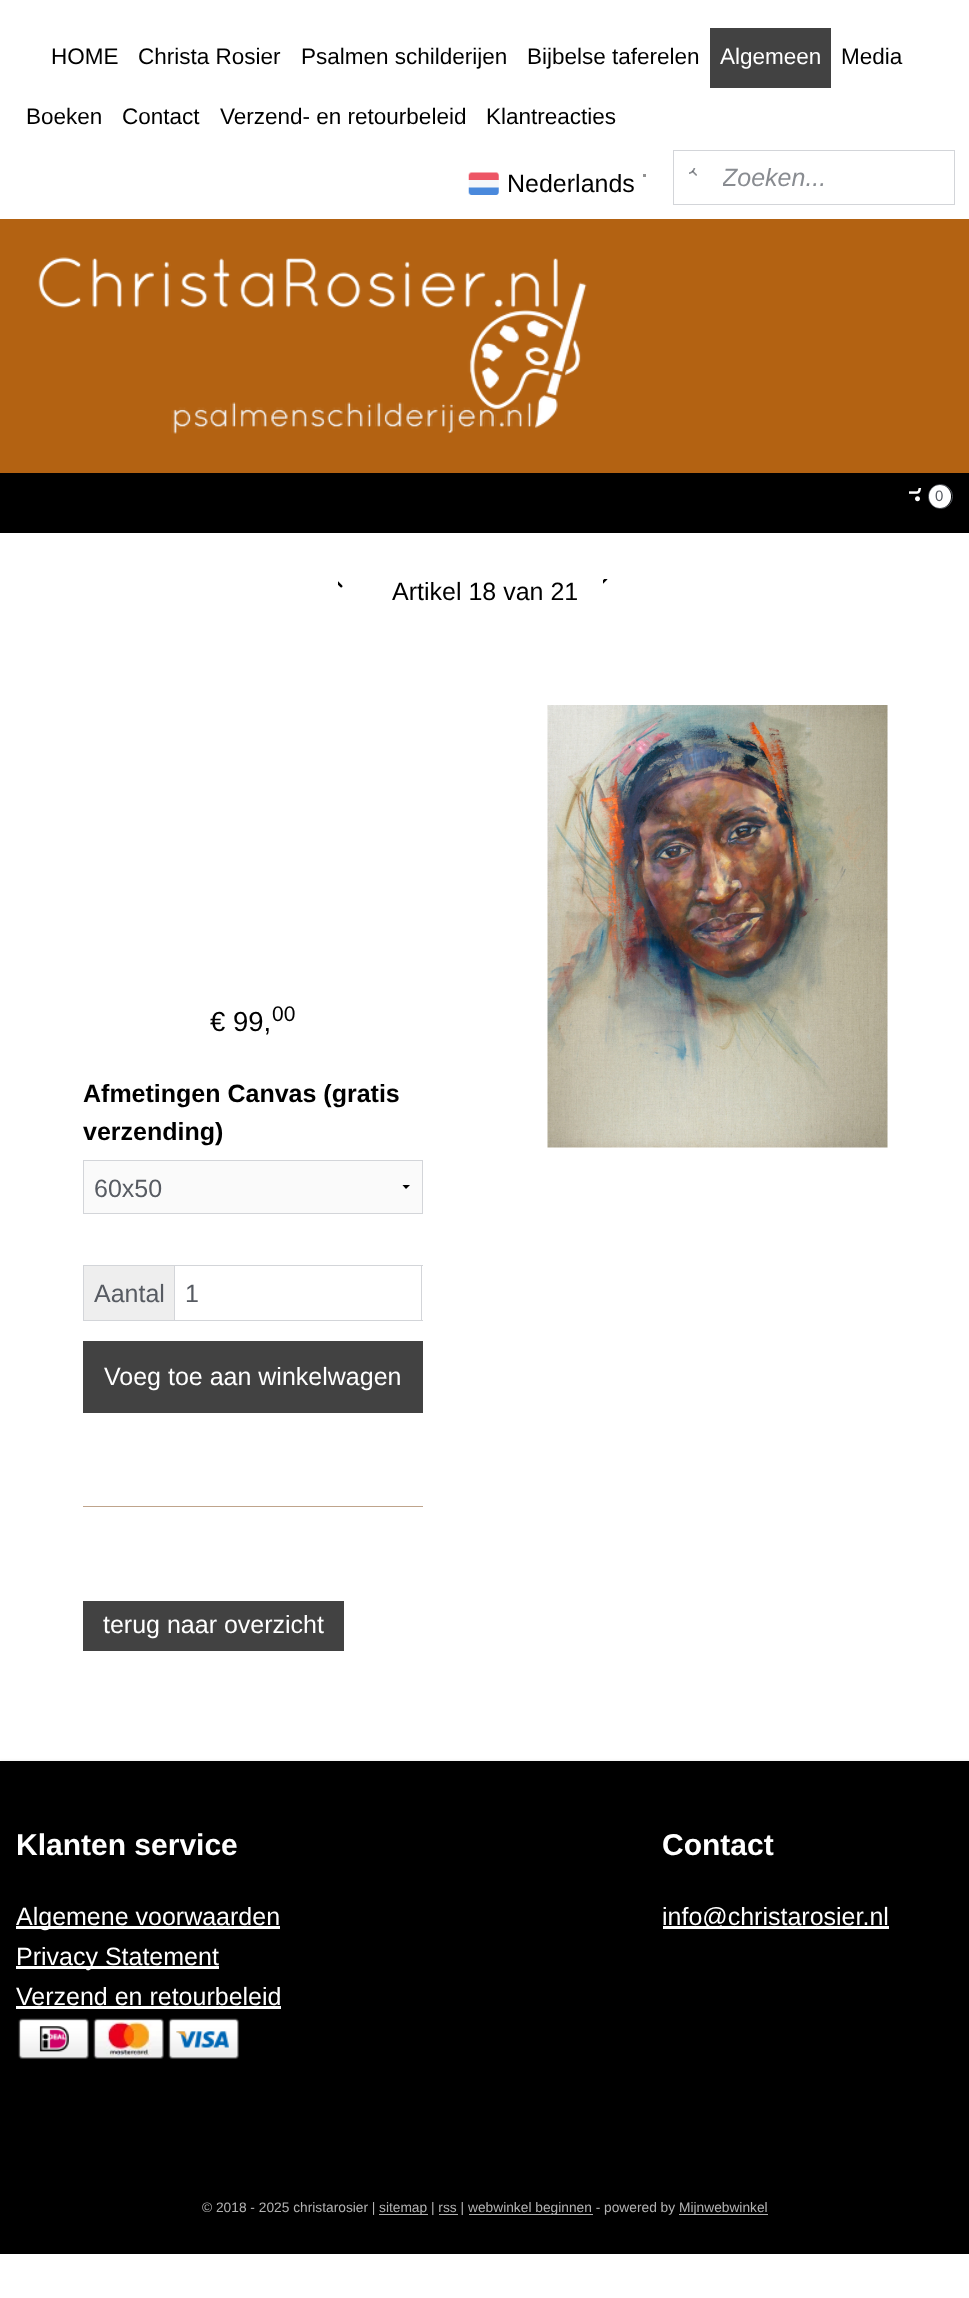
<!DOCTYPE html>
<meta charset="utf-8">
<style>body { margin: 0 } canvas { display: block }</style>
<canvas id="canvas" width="969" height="2298"></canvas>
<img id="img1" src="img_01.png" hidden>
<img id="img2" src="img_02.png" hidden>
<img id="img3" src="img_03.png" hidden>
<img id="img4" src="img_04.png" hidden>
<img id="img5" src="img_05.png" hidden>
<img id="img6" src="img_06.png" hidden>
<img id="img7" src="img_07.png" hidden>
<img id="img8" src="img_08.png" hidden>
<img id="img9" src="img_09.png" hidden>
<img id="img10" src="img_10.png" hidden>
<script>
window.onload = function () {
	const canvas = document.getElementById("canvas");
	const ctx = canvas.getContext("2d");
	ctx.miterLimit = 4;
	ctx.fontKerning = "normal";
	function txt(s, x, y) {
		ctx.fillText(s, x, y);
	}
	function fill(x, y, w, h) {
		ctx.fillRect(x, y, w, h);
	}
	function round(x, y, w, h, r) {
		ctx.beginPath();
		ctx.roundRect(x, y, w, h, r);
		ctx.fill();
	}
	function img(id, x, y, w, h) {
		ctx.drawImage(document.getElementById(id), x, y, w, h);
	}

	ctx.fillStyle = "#FFFFFF";
	fill(0, 0, 969, 2298);
	ctx.fillStyle = "#B36212";
	fill(0, 219, 969, 254);
	ctx.fillStyle = "#424242";
	fill(710, 28, 121, 60);
	img("img1", 468, 172, 31, 23);
	ctx.fillStyle = "#919191";
	fill(643, 174, 3, 3);
	ctx.strokeStyle = "#D3D5D9";
	ctx.strokeRect(673.5, 150.5, 281, 54);
	img("img2", 689, 168, 8, 8);
	img("img3", 38, 255, 549, 179);
	ctx.fillStyle = "#000000";
	fill(0, 473, 969, 60);
	img("img4", 909, 488, 13, 14);
	ctx.beginPath();
	ctx.arc(940.5, 496.5, 12, 0, Math.PI * 2);
	ctx.strokeStyle = "#575B62";
	ctx.stroke();
	ctx.fillStyle = "#FFFFFF";
	round(929, 485, 22, 23, 11);
	img("img5", 338, 581, 5, 7);
	img("img6", 603, 579, 5, 5);
	img("img7", 547, 705, 341, 443);
	ctx.fillStyle = "#FAFAFA";
	fill(84, 1161, 338, 52);
	ctx.fillStyle = "#000000";
	ctx.beginPath();
	ctx.moveTo(410, 1185);
	ctx.lineTo(406, 1189);
	ctx.lineTo(402.5, 1185);
	ctx.closePath();
	ctx.fill();
	ctx.strokeStyle = "#D3D5D9";
	ctx.strokeRect(83.5, 1160.5, 339, 53);
	ctx.fillStyle = "#D3D5D9";
	fill(83, 1265, 340, 1);
	fill(421, 1265, 1, 56);
	fill(174, 1266, 1, 55);
	fill(83, 1320, 340, 1);
	fill(83, 1265, 1, 56);
	ctx.fillStyle = "#EEEEEE";
	fill(84, 1266, 90, 54);
	ctx.fillStyle = "#424242";
	fill(83, 1341, 340, 72);
	ctx.fillStyle = "#BFA48C";
	fill(83, 1506, 340, 1);
	ctx.fillStyle = "#424242";
	fill(83, 1601, 261, 50);
	ctx.fillStyle = "rgba(0, 0, 0, 0.05)";
	ctx.filter = "blur(1px)";
	ctx.beginPath();
	ctx.rect(0, 1760, 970, 425);
	ctx.fill();
	ctx.filter = "none";
	ctx.fillStyle = "#000000";
	fill(0, 1761, 969, 493);
	ctx.fillStyle = "#FFFFFF";
	fill(16, 1926, 264, 3);
	fill(16, 1966, 203, 3);
	fill(16, 2006, 265, 3);
	img("img8", 18, 2018, 71, 41);
	img("img9", 93, 2018, 71, 41);
	img("img10", 168, 2018, 71, 41);
	fill(663, 1926, 226, 3);
	ctx.fillStyle = "#B3B3B3";
	fill(379, 2214, 49, 1);
	fill(469, 2214, 124, 1);
	fill(679, 2214, 89, 1);
	fill(439, 2214, 19, 1);
	ctx.font = "22.5px Liberation Sans";
	ctx.fillStyle = "#000000";
	txt("HOME", 51, 64);
	txt("Christa Rosier", 138, 64);
	txt("Psalmen schilderijen", 301, 64);
	txt("Bijbelse taferelen", 527, 64);
	ctx.fillStyle = "#FFFFFF";
	txt("Algemeen", 720, 64);
	ctx.fillStyle = "#000000";
	txt("Media", 841, 64);
	txt("Boeken", 26, 124);
	txt("Contact", 122, 124);
	txt("Verzend- en retourbeleid", 220, 124);
	txt("Klantreacties", 486, 124);
	ctx.font = "25px Liberation Sans";
	txt("Nederlands", 507, 192);
	ctx.save();
	ctx.beginPath();
	ctx.rect(723, 164, 217, 29);
	ctx.clip();
	ctx.font = "italic 25px Liberation Sans";
	ctx.fillStyle = "#898C91";
	txt("Zoeken...", 722, 186);
	ctx.restore();
	ctx.font = "15px Liberation Sans";
	ctx.fillStyle = "#575B62";
	txt("0", 935, 501);
	ctx.font = "25px Liberation Sans";
	ctx.fillStyle = "#000000";
	txt("Artikel 18 van 21", 392, 600);
	ctx.font = "27.5px Liberation Sans";
	txt("€ 99,", 210, 1031);
	ctx.font = "21px Liberation Sans";
	txt("00", 272, 1021);
	ctx.font = "bold 25px Liberation Sans";
	txt("Afmetingen Canvas (gratis", 83, 1102);
	txt("verzending)", 83, 1140);
	ctx.font = "25px Liberation Sans";
	ctx.fillStyle = "#575B62";
	txt("60x50", 94, 1197);
	txt("Aantal", 94, 1302);
	txt("1", 185, 1302);
	ctx.fillStyle = "#FFFFFF";
	txt("Voeg toe aan winkelwagen", 104, 1385);
	txt("terug naar overzicht", 103, 1633);
	ctx.font = "bold 30px Liberation Sans";
	txt("Klanten service", 16, 1855);
	ctx.font = "25px Liberation Sans";
	txt("Algemene voorwaarden", 16, 1925);
	txt("Privacy Statement", 16, 1965);
	txt("Verzend en retourbeleid", 16, 2005);
	ctx.font = "bold 30px Liberation Sans";
	txt("Contact", 662, 1855);
	ctx.font = "25px Liberation Sans";
	txt("info@christarosier.nl", 662, 1925);
	ctx.font = "13.75px Liberation Sans";
	ctx.fillStyle = "#B3B3B3";
	txt("© 2018 - 2025 christarosier |", 202, 2212);
	txt("sitemap | rss |", 379, 2212);
	txt("webwinkel beginnen - powered by", 468, 2212);
	txt("Mijnwebwinkel", 679, 2212);
};
</script>
